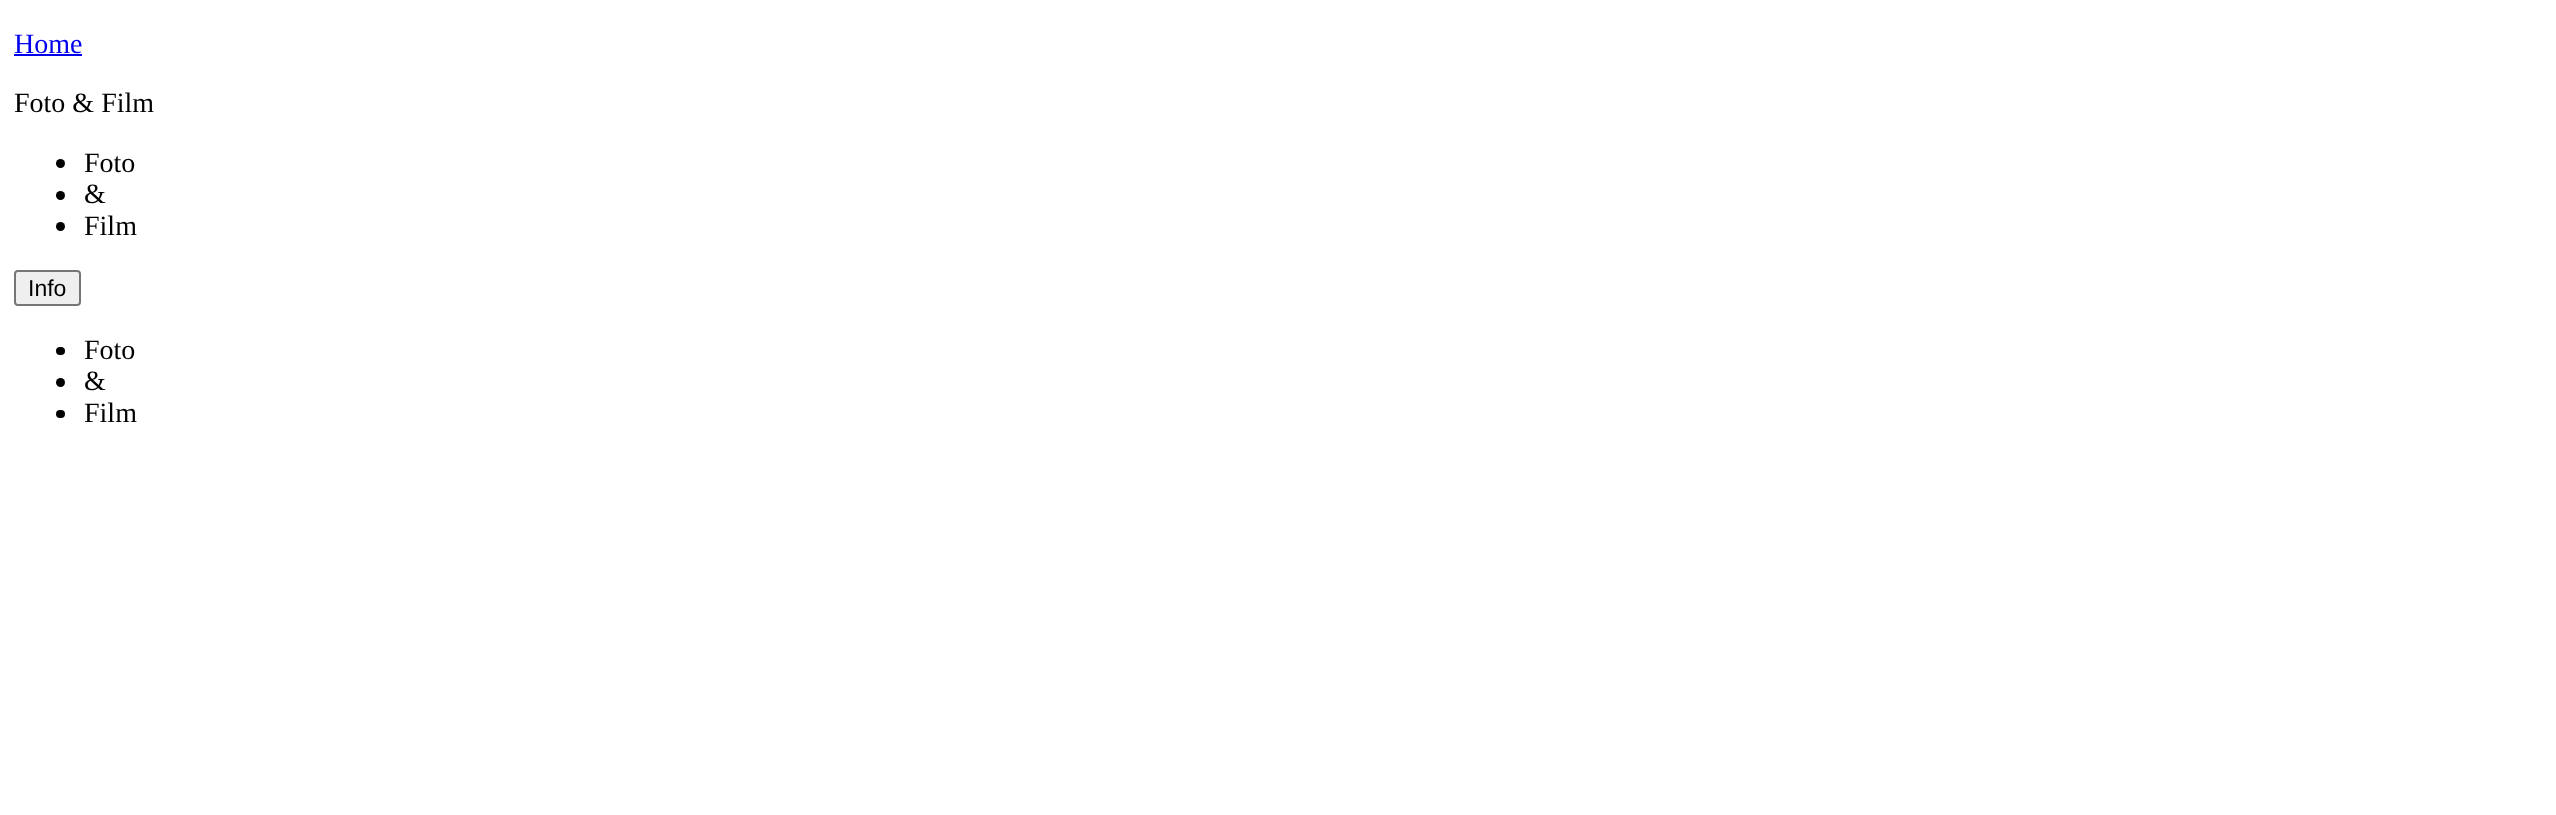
<!DOCTYPE html>
<meta charset="utf-8">
<style>body { margin: 0 } canvas { display: block }</style>
<canvas id="canvas" width="2556" height="815"></canvas>
<script>
window.onload = function () {
	const canvas = document.getElementById("canvas");
	const ctx = canvas.getContext("2d");
	ctx.miterLimit = 4;
	ctx.fontKerning = "normal";
	function txt(s, x, y) {
		ctx.fillText(s, x, y);
	}
	function fill(x, y, w, h) {
		ctx.fillRect(x, y, w, h);
	}
	function round(x, y, w, h, r) {
		ctx.beginPath();
		ctx.roundRect(x, y, w, h, r);
		ctx.fill();
	}

	ctx.fillStyle = "#FFFFFF";
	fill(0, 0, 2556, 815);
	ctx.fillStyle = "#0000EE";
	fill(14, 54, 68, 2);
	ctx.fillStyle = "#000000";
	ctx.beginPath();
	ctx.arc(60.5, 163.5, 4.5, 0, Math.PI * 2);
	ctx.fill();
	ctx.beginPath();
	ctx.arc(60.5, 195.5, 4.5, 0, Math.PI * 2);
	ctx.fill();
	ctx.beginPath();
	ctx.arc(60.5, 226.5, 4.5, 0, Math.PI * 2);
	ctx.fill();
	ctx.fillStyle = "#EFEFEF";
	ctx.beginPath();
	ctx.roundRect(15, 271, 65, 34, 3);
	ctx.fill();
	ctx.strokeStyle = "#767676";
	ctx.lineWidth = 2;
	ctx.stroke();
	ctx.fillStyle = "#000000";
	round(56, 347, 9, 8, 4);
	ctx.beginPath();
	ctx.arc(60.5, 382.5, 4.5, 0, Math.PI * 2);
	ctx.fill();
	round(56, 410, 9, 8, 4);
	ctx.font = "28px Liberation Serif";
	ctx.fillStyle = "#0000EE";
	txt("Home", 14, 53);
	ctx.fillStyle = "#000000";
	txt("Foto & Film", 14, 112);
	txt("Foto", 84, 172);
	txt("&", 84, 203);
	txt("Film", 84, 235);
	ctx.font = "23px Liberation Sans";
	txt("Info", 28, 296);
	ctx.font = "28px Liberation Serif";
	txt("Foto", 84, 359);
	txt("&", 84, 390);
	txt("Film", 84, 422);
};
</script>
